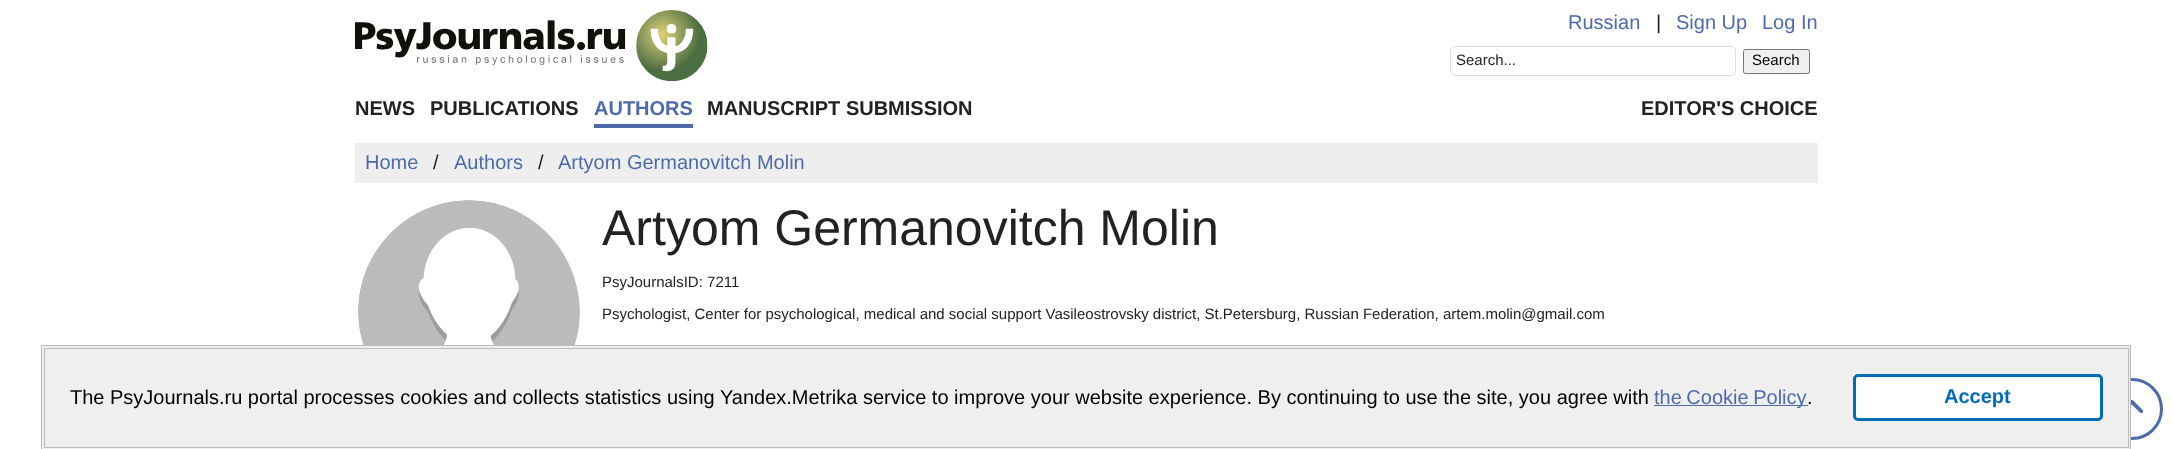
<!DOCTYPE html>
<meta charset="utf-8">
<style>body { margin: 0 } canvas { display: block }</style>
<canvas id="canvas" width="2172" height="449"></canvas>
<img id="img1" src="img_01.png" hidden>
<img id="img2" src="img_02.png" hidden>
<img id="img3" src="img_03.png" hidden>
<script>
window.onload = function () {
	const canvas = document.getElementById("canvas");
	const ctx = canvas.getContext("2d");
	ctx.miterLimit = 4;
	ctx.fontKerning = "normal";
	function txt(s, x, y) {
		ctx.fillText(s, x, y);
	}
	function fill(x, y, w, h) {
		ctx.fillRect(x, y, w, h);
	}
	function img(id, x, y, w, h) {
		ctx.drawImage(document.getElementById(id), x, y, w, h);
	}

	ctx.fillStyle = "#FFFFFF";
	fill(0, 0, 2172, 449);
	img("img1", 355, 10, 353, 71);
	ctx.beginPath();
	ctx.roundRect(1450.5, 46.5, 285, 29, 4.5);
	ctx.strokeStyle = "#DDDDDD";
	ctx.stroke();
	ctx.fillStyle = "#EFEFEF";
	ctx.beginPath();
	ctx.roundRect(1743.5, 49.5, 66, 24, 2);
	ctx.fill();
	ctx.strokeStyle = "#767676";
	ctx.stroke();
	ctx.fillStyle = "#4E6AA9";
	fill(594, 124, 99, 4);
	ctx.fillStyle = "#EEEEEE";
	fill(355, 143, 1463, 40);
	img("img2", 358, 200, 222, 145);
	ctx.beginPath();
	ctx.roundRect(2101.5, 379.5, 60, 59, 29.5);
	ctx.strokeStyle = "#4E6AA9";
	ctx.lineWidth = 3;
	ctx.stroke();
	img("img3", 2131, 400, 13, 14);
	ctx.fillStyle = "#EFEFEF";
	ctx.beginPath();
	ctx.rect(41.5, 345.5, 2089, 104);
	ctx.fill();
	ctx.strokeStyle = "#BDBABD";
	ctx.lineWidth = 1;
	ctx.stroke();
	ctx.strokeRect(44.5, 348.5, 2084, 99);
	ctx.fillStyle = "#4E6AA9";
	fill(1654, 405, 154, 1);
	ctx.fillStyle = "#FFFFFF";
	ctx.beginPath();
	ctx.roundRect(1854.5, 375.5, 247, 44, 3.5);
	ctx.fill();
	ctx.strokeStyle = "#006CB7";
	ctx.lineWidth = 3;
	ctx.stroke();
	ctx.font = "20px Liberation Sans";
	ctx.fillStyle = "#4E6AA9";
	txt("Russian", 1568, 29);
	ctx.fillStyle = "#222222";
	txt("|", 1656, 29);
	ctx.fillStyle = "#4E6AA9";
	txt("Sign Up", 1676, 29);
	txt("Log In", 1762, 29);
	ctx.font = "15px Liberation Sans";
	ctx.fillStyle = "#222222";
	txt("Search...", 1456, 65);
	ctx.fillStyle = "#000000";
	txt("Search", 1752, 65);
	ctx.font = "bold 20px Liberation Sans";
	ctx.fillStyle = "#222222";
	txt("NEWS", 355, 115);
	txt("PUBLICATIONS", 430, 115);
	ctx.fillStyle = "#4E6AA9";
	txt("AUTHORS", 594, 115);
	ctx.fillStyle = "#222222";
	txt("MANUSCRIPT SUBMISSION", 707, 115);
	txt("EDITOR'S CHOICE", 1641, 115);
	ctx.font = "20px Liberation Sans";
	ctx.fillStyle = "#4E6AA9";
	txt("Home", 365, 169);
	ctx.fillStyle = "#222222";
	txt("/", 433, 169);
	ctx.fillStyle = "#4E6AA9";
	txt("Authors", 454, 169);
	ctx.fillStyle = "#222222";
	txt("/", 538, 169);
	ctx.fillStyle = "#4E6AA9";
	txt("Artyom Germanovitch Molin", 558, 169);
	ctx.font = "50px Liberation Sans";
	ctx.fillStyle = "#222222";
	txt("Artyom Germanovitch Molin", 602, 245);
	ctx.font = "15px Liberation Sans";
	txt("PsyJournalsID: 7211", 602, 287);
	txt("Psychologist, Center for psychological, medical and social support Vasileostrovsky district, St.Petersburg, Russian Federation, artem.molin@gmail.com", 602, 319);
	ctx.font = "20px Liberation Sans";
	ctx.fillStyle = "#000000";
	txt("The PsyJournals.ru portal processes cookies and collects statistics using Yandex.Metrika service to improve your website experience. By continuing to use the site, you agree with", 70, 404);
	ctx.wordSpacing = "-1px";
	ctx.fillStyle = "#4E6AA9";
	txt("the Cookie Policy", 1654, 404);
	ctx.wordSpacing = "0px";
	ctx.fillStyle = "#000000";
	txt(".", 1807, 404);
	ctx.font = "bold 20px Liberation Sans";
	ctx.fillStyle = "#006CB7";
	txt("Accept", 1944, 403);
};
</script>
